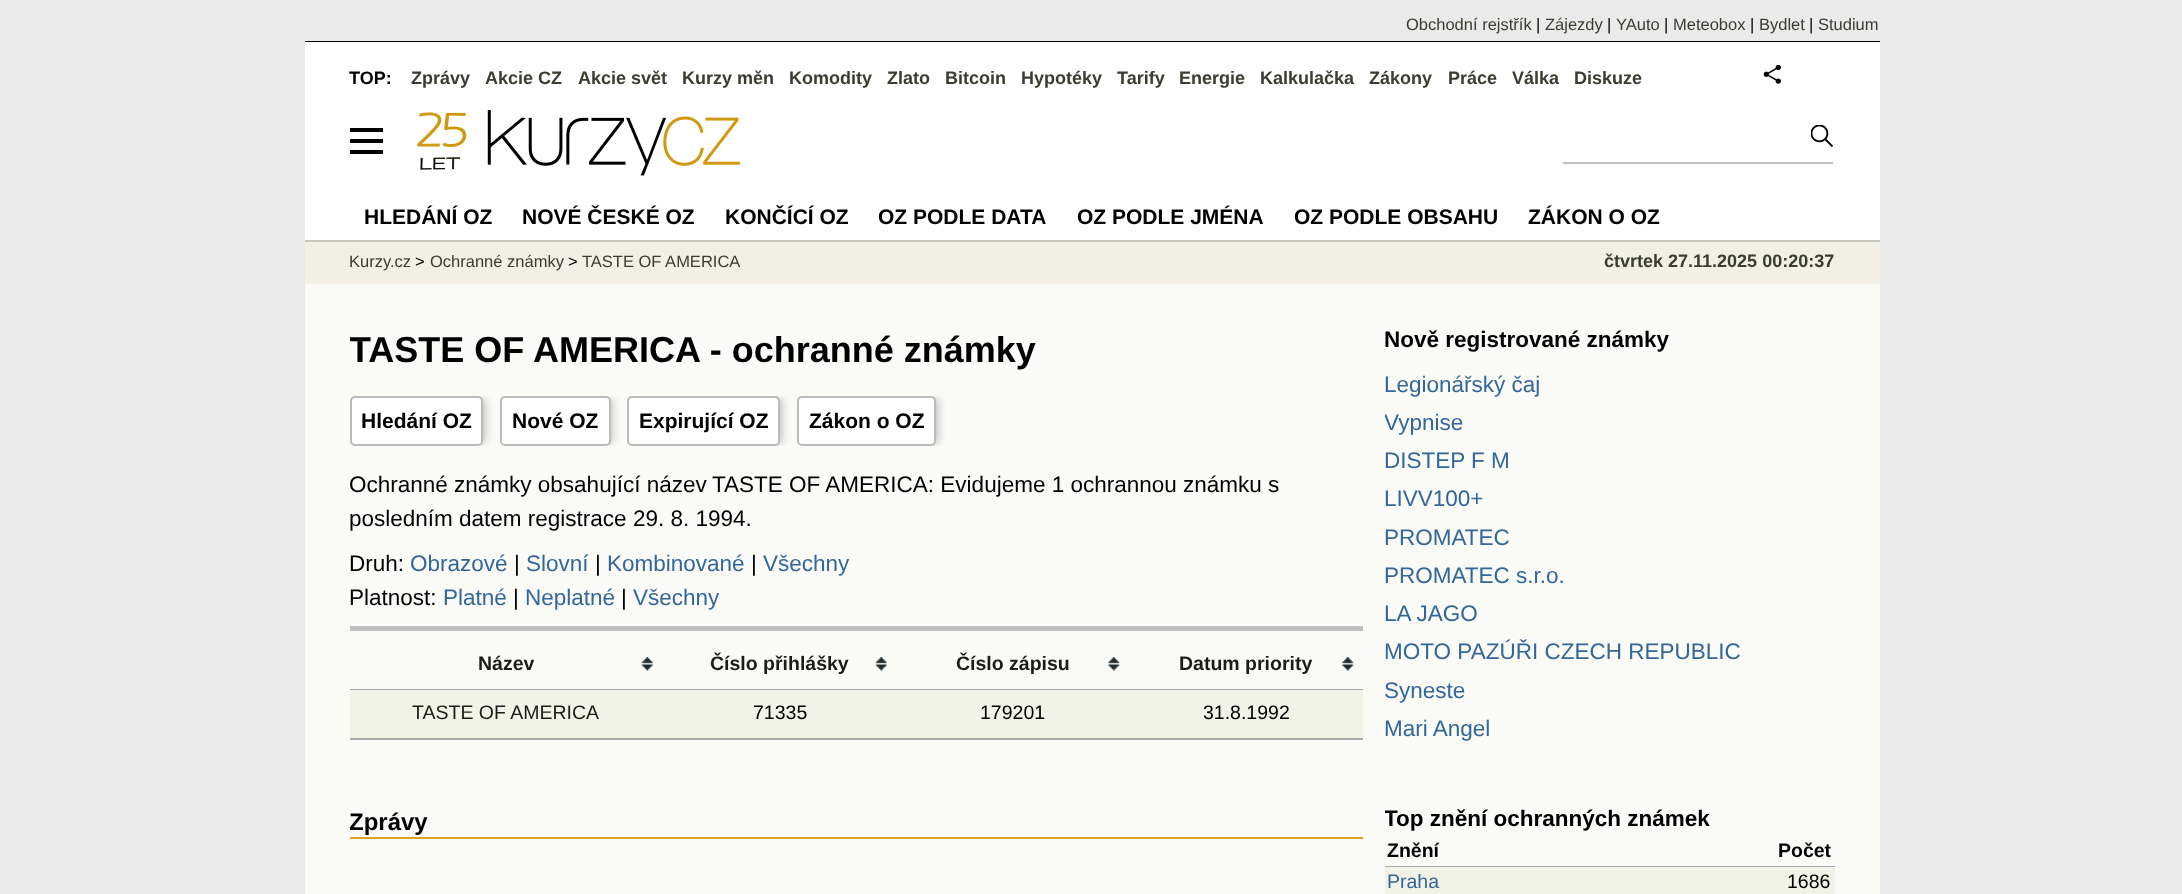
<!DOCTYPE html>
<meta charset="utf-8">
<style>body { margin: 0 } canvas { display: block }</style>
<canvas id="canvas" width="2182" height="894"></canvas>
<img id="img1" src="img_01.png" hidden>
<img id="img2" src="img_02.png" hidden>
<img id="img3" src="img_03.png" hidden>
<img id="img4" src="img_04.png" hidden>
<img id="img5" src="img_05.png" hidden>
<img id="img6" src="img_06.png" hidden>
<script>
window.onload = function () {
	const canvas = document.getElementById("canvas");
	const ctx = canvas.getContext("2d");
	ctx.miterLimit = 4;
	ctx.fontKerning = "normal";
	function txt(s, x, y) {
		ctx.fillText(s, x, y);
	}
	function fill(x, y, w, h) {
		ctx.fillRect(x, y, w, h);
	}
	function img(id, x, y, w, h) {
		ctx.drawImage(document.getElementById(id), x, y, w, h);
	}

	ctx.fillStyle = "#EAEAEA";
	fill(0, 0, 2182, 894);
	ctx.fillStyle = "#FAFBF7";
	fill(305, 284, 1575, 610);
	ctx.fillStyle = "#000000";
	fill(305, 41, 1575, 1);
	ctx.fillStyle = "#FFFFFF";
	fill(305, 42, 1575, 198);
	ctx.fillStyle = "#000000";
	fill(350, 128, 33, 4);
	img("img1", 417, 110, 323, 66);
	ctx.fillStyle = "#C0C0C0";
	fill(1563, 162, 270, 2);
	img("img2", 1811, 125, 22, 22);
	ctx.fillStyle = "#000000";
	fill(350, 139, 33, 4);
	fill(350, 150, 33, 4);
	img("img3", 1763, 65, 18, 19);
	ctx.fillStyle = "#F2EFE6";
	fill(305, 242, 1575, 42);
	ctx.save();
	ctx.beginPath();
	ctx.rect(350, 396, 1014, 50);
	ctx.clip();
	ctx.fillStyle = "#BBBBBB";
	ctx.filter = "blur(4px)";
	ctx.beginPath();
	ctx.roundRect(357, 399, 128, 44, 1.5);
	ctx.fill();
	ctx.filter = "none";
	ctx.restore();
	ctx.fillStyle = "#FFFFFF";
	ctx.beginPath();
	ctx.roundRect(351, 397, 131, 48, 4);
	ctx.fill();
	ctx.strokeStyle = "#BBBBBB";
	ctx.lineWidth = 2;
	ctx.stroke();
	ctx.save();
	ctx.beginPath();
	ctx.rect(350, 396, 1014, 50);
	ctx.clip();
	ctx.fillStyle = "#BBBBBB";
	ctx.filter = "blur(4px)";
	ctx.beginPath();
	ctx.roundRect(507, 399, 105, 44, 1.5);
	ctx.fill();
	ctx.filter = "none";
	ctx.restore();
	ctx.beginPath();
	ctx.roundRect(501, 397, 109, 48, 4);
	ctx.fill();
	ctx.stroke();
	ctx.save();
	ctx.beginPath();
	ctx.rect(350, 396, 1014, 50);
	ctx.clip();
	ctx.fillStyle = "#BBBBBB";
	ctx.filter = "blur(4px)";
	ctx.beginPath();
	ctx.roundRect(635, 399, 147, 44, 1.5);
	ctx.fill();
	ctx.filter = "none";
	ctx.restore();
	ctx.beginPath();
	ctx.roundRect(628, 397, 151, 48, 4);
	ctx.fill();
	ctx.stroke();
	ctx.save();
	ctx.beginPath();
	ctx.rect(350, 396, 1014, 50);
	ctx.clip();
	ctx.fillStyle = "#BBBBBB";
	ctx.filter = "blur(4px)";
	ctx.beginPath();
	ctx.roundRect(804, 399, 134, 44, 1.5);
	ctx.fill();
	ctx.filter = "none";
	ctx.restore();
	ctx.beginPath();
	ctx.roundRect(798, 397, 137, 48, 4);
	ctx.fill();
	ctx.stroke();
	ctx.fillStyle = "#C0C0C0";
	fill(350, 626, 1014, 5);
	img("img4", 641, 657, 12, 14);
	ctx.fillStyle = "#AAAAAA";
	fill(350, 689, 1014, 1);
	img("img5", 875, 657, 12, 14);
	img("img6", 1108, 657, 12, 14);
	img("img6", 1342, 657, 12, 14);
	ctx.fillStyle = "#F1F3E6";
	fill(350, 690, 1013, 48);
	ctx.fillStyle = "#AAAAAA";
	fill(350, 738, 1014, 2);
	ctx.fillStyle = "#DAA520";
	fill(350, 837, 1014, 2);
	ctx.fillStyle = "#AAAAAA";
	fill(1385, 866, 450, 1);
	ctx.fillStyle = "#F1F3E6";
	fill(1385, 867, 450, 27);
	ctx.fillStyle = "#C5C6BD";
	fill(305, 240, 1575, 2);
	ctx.font = "16.5px Liberation Sans";
	ctx.fillStyle = "#393C31";
	txt("Obchodní rejstřík", 1406, 30);
	ctx.fillStyle = "#000000";
	txt("|", 1536, 30);
	ctx.fillStyle = "#393C31";
	txt("Zájezdy", 1545, 30);
	ctx.fillStyle = "#000000";
	txt("|", 1607, 30);
	ctx.fillStyle = "#393C31";
	txt("YAuto", 1616, 30);
	ctx.fillStyle = "#000000";
	txt("|", 1664, 30);
	ctx.fillStyle = "#393C31";
	txt("Meteobox", 1673, 30);
	ctx.fillStyle = "#000000";
	txt("|", 1750, 30);
	ctx.fillStyle = "#393C31";
	txt("Bydlet", 1759, 30);
	ctx.fillStyle = "#000000";
	txt("|", 1809, 30);
	ctx.fillStyle = "#393C31";
	txt("Studium", 1818, 30);
	ctx.font = "bold 18px Liberation Sans";
	ctx.fillStyle = "#000000";
	txt("TOP:", 349, 84);
	ctx.fillStyle = "#393C31";
	txt("Zprávy", 411, 84);
	txt("Akcie CZ", 485, 84);
	txt("Akcie svět", 578, 84);
	txt("Kurzy měn", 682, 84);
	txt("Komodity", 789, 84);
	txt("Zlato", 887, 84);
	txt("Bitcoin", 945, 84);
	txt("Hypotéky", 1021, 84);
	txt("Tarify", 1117, 84);
	txt("Energie", 1179, 84);
	txt("Kalkulačka", 1260, 84);
	txt("Zákony", 1369, 84);
	txt("Práce", 1448, 84);
	txt("Válka", 1512, 84);
	txt("Diskuze", 1574, 84);
	ctx.font = "16.5px Liberation Sans";
	txt("Kurzy.cz", 349, 267);
	ctx.fillStyle = "#000000";
	txt(">", 415, 267);
	ctx.fillStyle = "#393C31";
	txt("Ochranné známky", 430, 267);
	ctx.fillStyle = "#000000";
	txt(">", 568, 267);
	ctx.fillStyle = "#393C31";
	txt("TASTE OF AMERICA", 582, 267);
	ctx.font = "bold 18px Liberation Sans";
	txt("čtvrtek 27.11.2025 00:20:37", 1604, 267);
	ctx.save();
	ctx.beginPath();
	ctx.rect(350, 323, 1014, 67);
	ctx.clip();
	ctx.font = "bold 36px Liberation Sans";
	ctx.fillStyle = "#000000";
	txt("TASTE OF AMERICA - ochranné známky", 349, 362);
	ctx.restore();
	ctx.font = "bold 21px Liberation Sans";
	ctx.fillStyle = "#000000";
	txt("Hledání OZ", 361, 428);
	txt("Nové OZ", 512, 428);
	txt("Expirující OZ", 639, 428);
	txt("Zákon o OZ", 809, 428);
	ctx.font = "22.5px Liberation Sans";
	txt("Ochranné známky obsahující název", 349, 492);
	txt("TASTE OF AMERICA: Evidujeme 1 ochrannou známku s", 712, 492);
	txt("posledním datem registrace 29. 8. 1994.", 349, 526);
	txt("Druh:", 349, 571);
	ctx.fillStyle = "#336699";
	txt("Obrazové", 410, 571);
	ctx.fillStyle = "#000000";
	txt("|", 514, 571);
	ctx.fillStyle = "#336699";
	txt("Slovní", 526, 571);
	ctx.fillStyle = "#000000";
	txt("|", 595, 571);
	ctx.fillStyle = "#336699";
	txt("Kombinované", 607, 571);
	ctx.fillStyle = "#000000";
	txt("|", 751, 571);
	ctx.fillStyle = "#336699";
	txt("Všechny", 763, 571);
	ctx.fillStyle = "#000000";
	txt("Platnost:", 349, 605);
	ctx.fillStyle = "#336699";
	txt("Platné", 443, 605);
	ctx.fillStyle = "#000000";
	txt("|", 513, 605);
	ctx.fillStyle = "#336699";
	txt("Neplatné", 525, 605);
	ctx.fillStyle = "#000000";
	txt("|", 621, 605);
	ctx.fillStyle = "#336699";
	txt("Všechny", 633, 605);
	ctx.font = "bold 19.5px Liberation Sans";
	ctx.fillStyle = "#1B1B1B";
	txt("Název", 478, 670);
	txt("Číslo přihlášky", 710, 670);
	txt("Číslo zápisu", 956, 670);
	txt("Datum priority", 1179, 670);
	ctx.font = "19.5px Liberation Sans";
	txt("TASTE OF AMERICA", 412, 719);
	ctx.fillStyle = "#000000";
	txt("71335", 753, 719);
	txt("179201", 980, 719);
	txt("31.8.1992", 1203, 719);
	ctx.save();
	ctx.beginPath();
	ctx.rect(350, 323, 1014, 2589);
	ctx.clip();
	ctx.font = "bold 24px Liberation Sans";
	txt("Zprávy", 349, 830);
	ctx.restore();
	ctx.font = "bold 22.5px Liberation Sans";
	txt("Nově registrované známky", 1384, 347);
	ctx.font = "22.5px Liberation Sans";
	ctx.fillStyle = "#336699";
	txt("Legionářský čaj", 1384, 392);
	ctx.save();
	ctx.beginPath();
	ctx.rect(1385, 407, 450, 33);
	ctx.clip();
	txt("Vypnise", 1384, 430);
	ctx.restore();
	txt("DISTEP F M", 1384, 468);
	txt("LIVV100+", 1384, 506);
	txt("PROMATEC", 1384, 545);
	txt("PROMATEC s.r.o.", 1384, 583);
	txt("LA JAGO", 1384, 621);
	txt("MOTO PAZÚŘI CZECH REPUBLIC", 1384, 659);
	txt("Syneste", 1384, 698);
	txt("Mari Angel", 1384, 736);
	ctx.font = "bold 22.5px Liberation Sans";
	ctx.fillStyle = "#000000";
	txt("Top znění ochranných známek", 1384, 826);
	ctx.fillStyle = "#FAFBF7";
	fill(1363, 626, 22, 213);
	ctx.font = "bold 19.5px Liberation Sans";
	ctx.fillStyle = "#000000";
	txt("Znění", 1387, 857);
	txt("Počet", 1778, 857);
	ctx.font = "19.5px Liberation Sans";
	ctx.fillStyle = "#336699";
	txt("Praha", 1387, 888);
	ctx.fillStyle = "#000000";
	txt("1686", 1787, 888);
	ctx.font = "bold 21px Liberation Sans";
	txt("HLEDÁNÍ OZ", 364, 224);
	txt("NOVÉ ČESKÉ OZ", 522, 224);
	txt("KONČÍCÍ OZ", 725, 224);
	txt("OZ PODLE DATA", 878, 224);
	txt("OZ PODLE JMÉNA", 1077, 224);
	txt("OZ PODLE OBSAHU", 1294, 224);
	txt("ZÁKON O OZ", 1528, 224);
};
</script>
